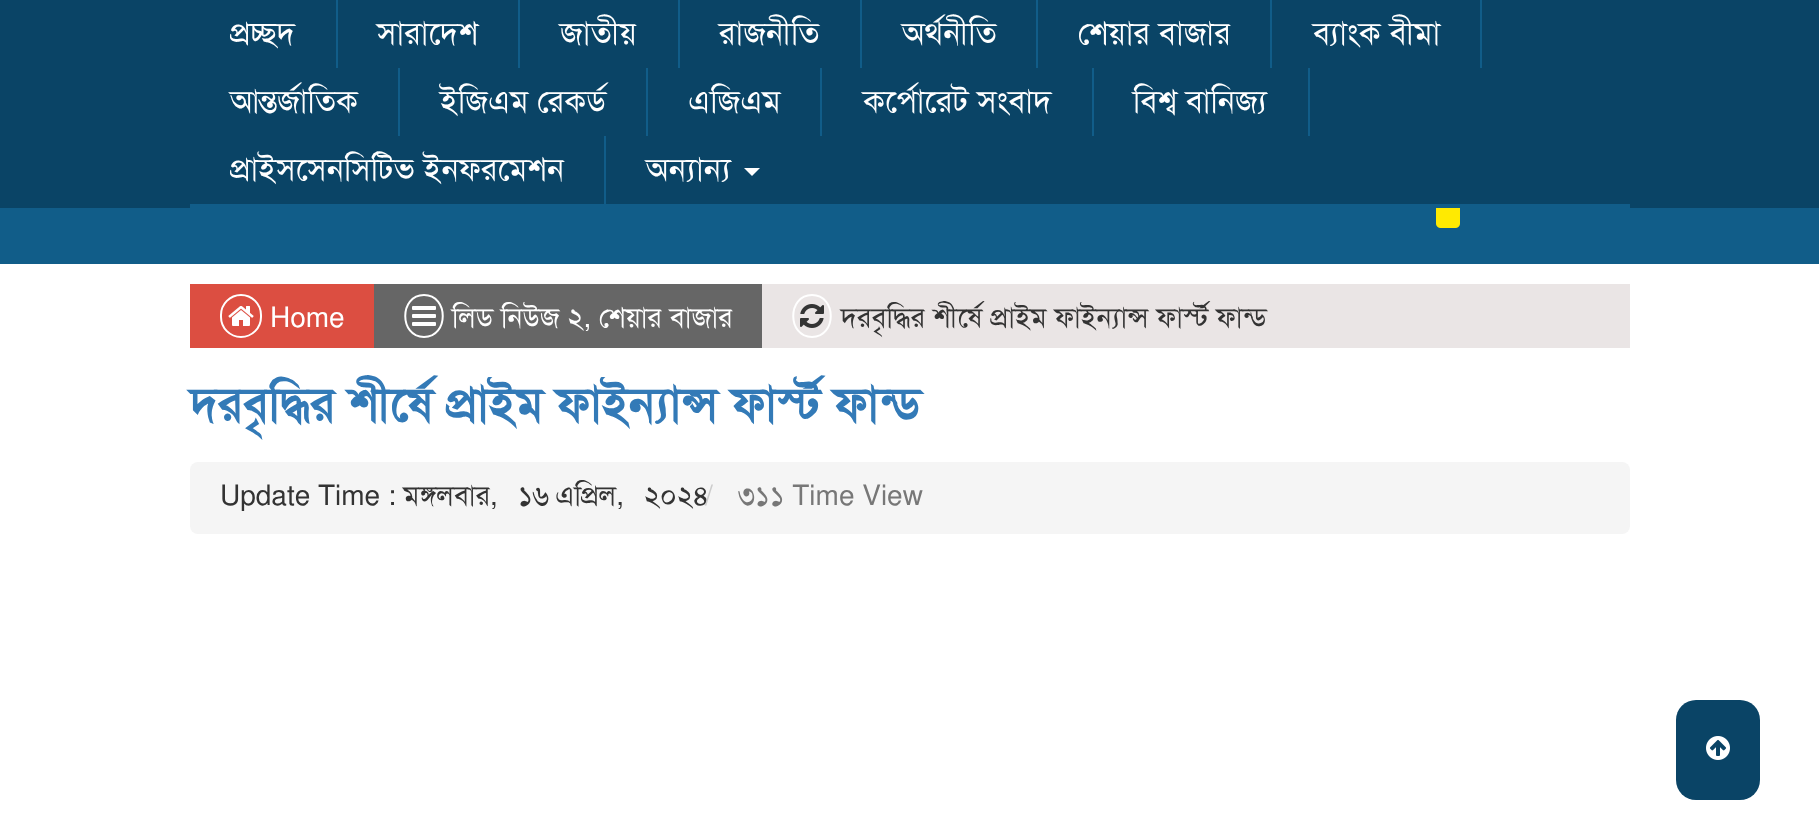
<!DOCTYPE html>
<meta charset="utf-8">
<style>body { margin: 0 } canvas { display: block }</style>
<canvas id="canvas" width="1819" height="840"></canvas>
<img id="img1" src="img_01.png" hidden>
<img id="img2" src="img_02.png" hidden>
<img id="img3" src="img_03.png" hidden>
<img id="img4" src="img_04.png" hidden>
<img id="img5" src="img_05.png" hidden>
<script>
window.onload = function () {
	const canvas = document.getElementById("canvas");
	const ctx = canvas.getContext("2d");
	ctx.miterLimit = 4;
	ctx.fontKerning = "normal";
	function txt(s, x, y) {
		ctx.fillText(s, x, y);
	}
	function fill(x, y, w, h) {
		ctx.fillRect(x, y, w, h);
	}
	function round(x, y, w, h, r) {
		ctx.beginPath();
		ctx.roundRect(x, y, w, h, r);
		ctx.fill();
	}
	function img(id, x, y, w, h) {
		ctx.drawImage(document.getElementById(id), x, y, w, h);
	}

	ctx.fillStyle = "#FFFFFF";
	fill(0, 0, 1819, 840);
	ctx.fillStyle = "#0A4466";
	fill(0, 0, 1819, 208);
	ctx.fillStyle = "#115D89";
	fill(190, 204, 1440, 4);
	fill(336, 0, 2, 68);
	fill(518, 0, 2, 68);
	fill(678, 0, 2, 68);
	fill(860, 0, 2, 68);
	fill(1036, 0, 2, 68);
	fill(1270, 0, 2, 68);
	fill(1480, 0, 2, 68);
	fill(398, 68, 2, 68);
	fill(646, 68, 2, 68);
	fill(820, 68, 2, 68);
	fill(1092, 68, 2, 68);
	fill(1308, 68, 2, 68);
	fill(604, 136, 2, 68);
	ctx.fillStyle = "#FFFFFF";
	ctx.beginPath();
	ctx.moveTo(744, 168);
	ctx.lineTo(760, 168);
	ctx.lineTo(752, 176);
	ctx.closePath();
	ctx.fill();
	ctx.fillStyle = "#115D89";
	fill(0, 208, 1819, 56);
	img("img1", 1436, 208, 24, 20);
	ctx.fillStyle = "#EAE5E5";
	fill(762, 284, 868, 64);
	ctx.fillStyle = "#DC4E41";
	fill(190, 284, 184, 64);
	ctx.beginPath();
	ctx.roundRect(221, 295, 40, 42, 20);
	ctx.strokeStyle = "#FFFFFF";
	ctx.lineWidth = 2;
	ctx.stroke();
	img("img2", 228, 306, 26, 20);
	ctx.fillStyle = "#666666";
	fill(374, 284, 388, 64);
	ctx.beginPath();
	ctx.moveTo(424, 295);
	ctx.bezierCurveTo(449, 295, 449, 337, 424, 337);
	ctx.bezierCurveTo(399, 337, 399, 295, 424, 295);
	ctx.closePath();
	ctx.stroke();
	img("img3", 412, 306, 24, 20);
	ctx.beginPath();
	ctx.moveTo(812, 295);
	ctx.bezierCurveTo(837, 295, 837, 337, 812, 337);
	ctx.bezierCurveTo(787, 337, 787, 295, 812, 295);
	ctx.closePath();
	ctx.stroke();
	img("img4", 800, 304, 24, 24);
	ctx.fillStyle = "#F5F5F5";
	round(190, 462, 1440, 72, 8);
	ctx.fillStyle = "#0A4466";
	round(1676, 700, 84, 100, 20);
	img("img5", 1706, 736, 24, 24);
	ctx.font = "32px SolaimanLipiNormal";
	ctx.fillStyle = "#FFFFFF";
	txt("প্রচ্ছদ", 230, 44);
	txt("সারাদেশ", 377, 44);
	txt("জাতীয়", 560, 44);
	txt("রাজনীতি", 719, 44);
	txt("অর্থনীতি", 902, 44);
	txt("শেয়ার বাজার", 1078, 44);
	txt("ব্যাংক বীমা", 1313, 44);
	txt("আন্তর্জাতিক", 230, 112);
	txt("ইজিএম রেকর্ড", 440, 112);
	txt("এজিএম", 688, 112);
	txt("কর্পোরেট সংবাদ", 863, 112);
	txt("বিশ্ব বানিজ্য", 1133, 112);
	txt("প্রাইসসেনসিটিভ ইনফরমেশন", 230, 180);
	txt("অন্যান্য", 646, 180);
	ctx.font = "28px SolaimanLipiNormal";
	txt("Home", 270, 327);
	txt("লিড নিউজ ২, শেয়ার বাজার", 452, 327);
	ctx.fillStyle = "#333333";
	txt("দরবৃদ্ধির শীর্ষে প্রাইম ফাইন্যান্স ফার্স্ট ফান্ড", 841, 327);
	ctx.font = "bold 48px SolaimanLipiNormal";
	ctx.fillStyle = "#337AB7";
	txt("দরবৃদ্ধির শীর্ষে প্রাইম ফাইন্যান্স ফার্স্ট ফান্ড", 190, 421);
	ctx.font = "28px SolaimanLipiNormal";
	ctx.fillStyle = "#333333";
	txt("Update Time : মঙ্গলবার,", 220, 505);
	txt("১৬", 518, 505);
	txt("এপ্রিল,", 555, 505);
	txt("২০২৪", 644, 505);
	ctx.fillStyle = "#CCCCCC";
	txt("/", 705, 505);
	ctx.fillStyle = "#777777";
	txt("৩১১ Time View", 738, 505);
};
</script>
